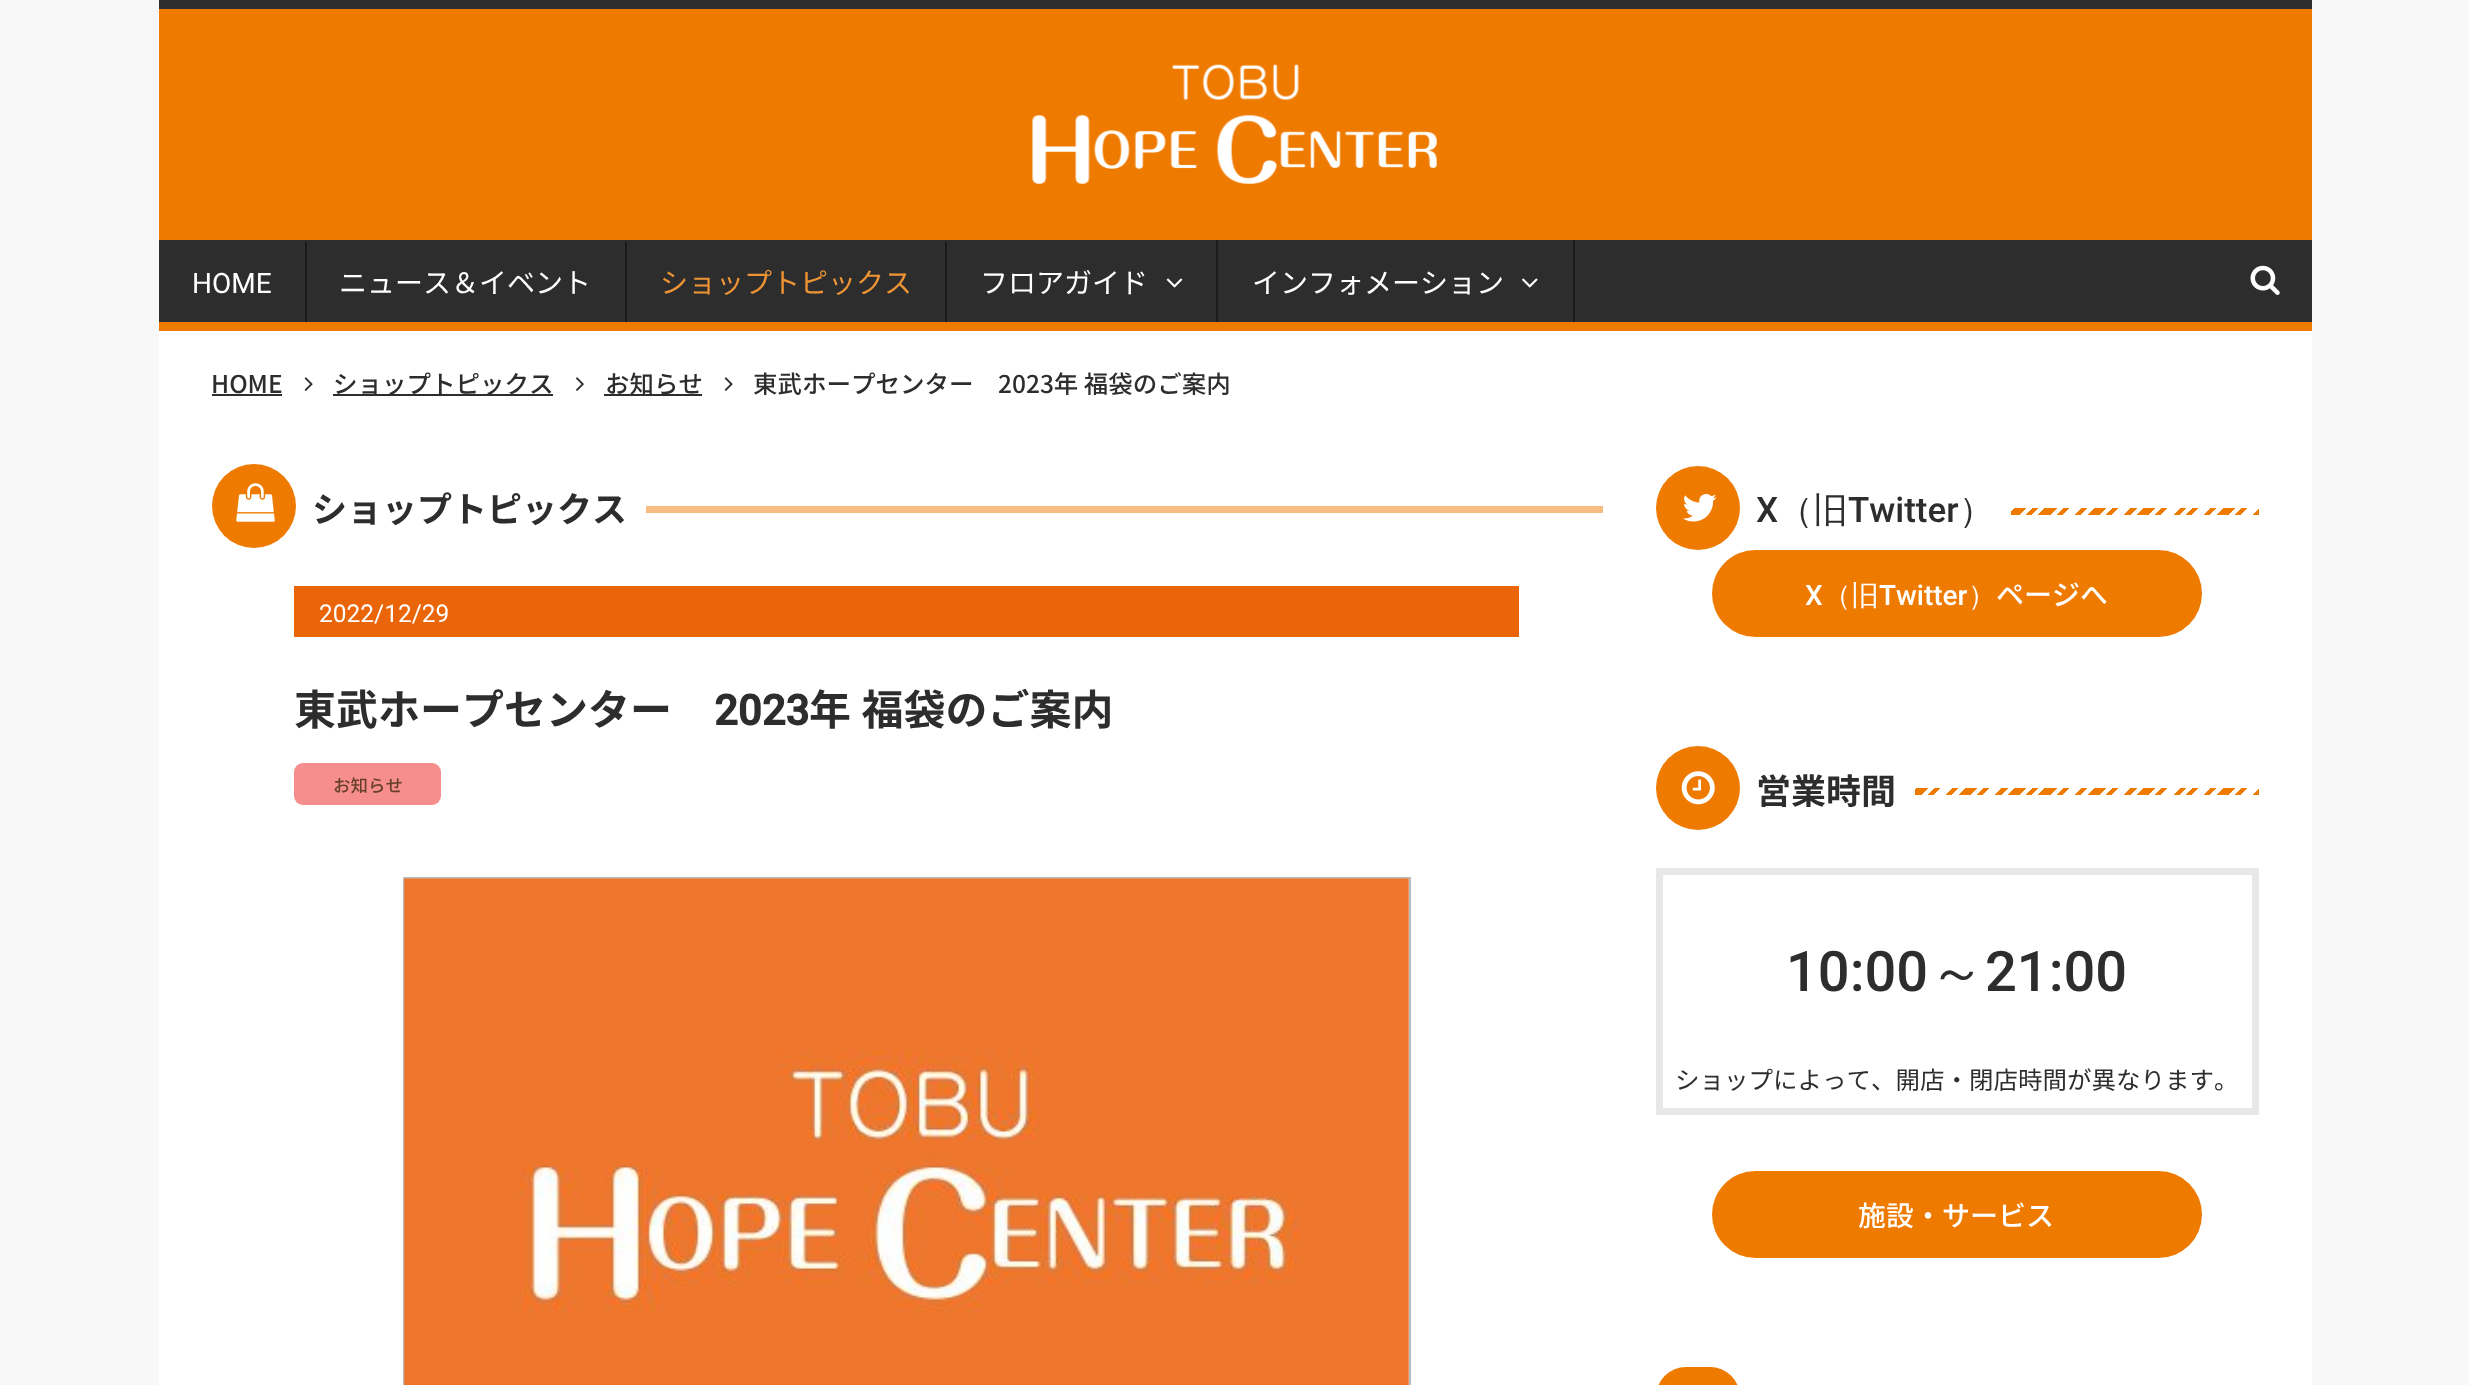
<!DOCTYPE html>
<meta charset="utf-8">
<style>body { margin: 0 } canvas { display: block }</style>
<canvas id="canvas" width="2469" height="1385"></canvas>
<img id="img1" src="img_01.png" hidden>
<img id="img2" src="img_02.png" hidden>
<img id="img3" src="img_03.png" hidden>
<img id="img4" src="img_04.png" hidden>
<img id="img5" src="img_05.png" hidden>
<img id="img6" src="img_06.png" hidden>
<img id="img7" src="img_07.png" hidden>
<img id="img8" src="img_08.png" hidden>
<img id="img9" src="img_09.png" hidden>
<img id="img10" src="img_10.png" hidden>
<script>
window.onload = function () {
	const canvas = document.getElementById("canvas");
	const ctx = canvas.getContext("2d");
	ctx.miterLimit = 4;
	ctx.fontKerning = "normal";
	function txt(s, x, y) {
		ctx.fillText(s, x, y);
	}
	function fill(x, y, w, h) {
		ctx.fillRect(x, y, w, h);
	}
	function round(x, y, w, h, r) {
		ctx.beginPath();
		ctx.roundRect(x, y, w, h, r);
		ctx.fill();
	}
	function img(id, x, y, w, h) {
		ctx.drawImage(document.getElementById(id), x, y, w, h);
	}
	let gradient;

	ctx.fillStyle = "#F8F8F8";
	fill(0, 0, 2469, 1385);
	ctx.fillStyle = "#FFFFFF";
	fill(159, 331, 2153, 1054);
	ctx.fillStyle = "#EF7A00";
	fill(159, 9, 2153, 231);
	ctx.fillStyle = "#2D2D2D";
	fill(159, 0, 2153, 9);
	img("img1", 1032, 64, 405, 120);
	fill(159, 240, 2153, 82);
	ctx.fillStyle = "#EF7A00";
	fill(159, 322, 2153, 9);
	ctx.fillStyle = "#1A1A1A";
	fill(305, 242, 2, 80);
	fill(625, 242, 2, 80);
	fill(945, 242, 2, 80);
	fill(1216, 240, 2, 82);
	img("img2", 1166, 278, 17, 10);
	fill(1573, 240, 2, 82);
	img("img3", 1522, 278, 16, 10);
	img("img4", 2250, 265, 30, 30);
	ctx.fillStyle = "#2D2D2D";
	fill(212, 394, 70, 2);
	img("img5", 304, 377, 9, 14);
	fill(333, 394, 220, 2);
	img("img6", 576, 377, 8, 14);
	fill(604, 394, 98, 2);
	img("img5", 724, 377, 9, 14);
	ctx.fillStyle = "#EF7A00";
	ctx.beginPath();
	ctx.arc(254, 506, 42, 0, Math.PI * 2);
	ctx.fill();
	img("img7", 236, 483, 39, 39);
	ctx.fillStyle = "#F7BD80";
	fill(646, 506, 957, 7);
	ctx.fillStyle = "#E96507";
	fill(294, 586, 1225, 51);
	ctx.fillStyle = "#F78E8E";
	round(294, 763, 147, 42, 9);
	ctx.strokeStyle = "#BBBBBB";
	ctx.lineWidth = 2;
	ctx.strokeRect(404, 878, 1006, 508);
	img("img8", 404, 878, 1005, 507);
	ctx.fillStyle = "#EF7A00";
	ctx.beginPath();
	ctx.arc(1698, 508, 42, 0, Math.PI * 2);
	ctx.fill();
	img("img9", 1683, 494, 34, 28);
	gradient = ctx.createLinearGradient(2110, 664, 1803, 357);
	gradient.addColorStop(0, "#EF7A00");
	gradient.addColorStop(0.01, "#EF7A00");
	gradient.addColorStop(0.01, "#FFFFFF");
	gradient.addColorStop(0.02, "#FFFFFF");
	gradient.addColorStop(0.02, "#EF7A00");
	gradient.addColorStop(0.02, "#EF7A00");
	gradient.addColorStop(0.02, "#FFFFFF");
	gradient.addColorStop(0.03, "#FFFFFF");
	gradient.addColorStop(0.03, "#EF7A00");
	gradient.addColorStop(0.04, "#EF7A00");
	gradient.addColorStop(0.04, "#FFFFFF");
	gradient.addColorStop(0.05, "#FFFFFF");
	gradient.addColorStop(0.05, "#EF7A00");
	gradient.addColorStop(0.06, "#EF7A00");
	gradient.addColorStop(0.06, "#FFFFFF");
	gradient.addColorStop(0.06, "#FFFFFF");
	gradient.addColorStop(0.06, "#EF7A00");
	gradient.addColorStop(0.07, "#EF7A00");
	gradient.addColorStop(0.07, "#FFFFFF");
	gradient.addColorStop(0.08, "#FFFFFF");
	gradient.addColorStop(0.08, "#EF7A00");
	gradient.addColorStop(0.09, "#EF7A00");
	gradient.addColorStop(0.09, "#FFFFFF");
	gradient.addColorStop(0.1, "#FFFFFF");
	gradient.addColorStop(0.1, "#EF7A00");
	gradient.addColorStop(0.1, "#EF7A00");
	gradient.addColorStop(0.1, "#FFFFFF");
	gradient.addColorStop(0.11, "#FFFFFF");
	gradient.addColorStop(0.11, "#EF7A00");
	gradient.addColorStop(0.12, "#EF7A00");
	gradient.addColorStop(0.12, "#FFFFFF");
	gradient.addColorStop(0.13, "#FFFFFF");
	gradient.addColorStop(0.13, "#EF7A00");
	gradient.addColorStop(0.14, "#EF7A00");
	gradient.addColorStop(0.14, "#FFFFFF");
	gradient.addColorStop(0.15, "#FFFFFF");
	gradient.addColorStop(0.15, "#EF7A00");
	gradient.addColorStop(0.15, "#EF7A00");
	gradient.addColorStop(0.15, "#FFFFFF");
	gradient.addColorStop(0.16, "#FFFFFF");
	gradient.addColorStop(0.16, "#EF7A00");
	gradient.addColorStop(0.17, "#EF7A00");
	gradient.addColorStop(0.17, "#FFFFFF");
	gradient.addColorStop(0.18, "#FFFFFF");
	gradient.addColorStop(0.18, "#EF7A00");
	gradient.addColorStop(0.19, "#EF7A00");
	gradient.addColorStop(0.19, "#FFFFFF");
	gradient.addColorStop(0.19, "#FFFFFF");
	gradient.addColorStop(0.19, "#EF7A00");
	gradient.addColorStop(0.2, "#EF7A00");
	gradient.addColorStop(0.2, "#FFFFFF");
	gradient.addColorStop(0.21, "#FFFFFF");
	gradient.addColorStop(0.21, "#EF7A00");
	gradient.addColorStop(0.22, "#EF7A00");
	gradient.addColorStop(0.22, "#FFFFFF");
	gradient.addColorStop(0.23, "#FFFFFF");
	gradient.addColorStop(0.23, "#EF7A00");
	gradient.addColorStop(0.23, "#EF7A00");
	gradient.addColorStop(0.23, "#FFFFFF");
	gradient.addColorStop(0.24, "#FFFFFF");
	gradient.addColorStop(0.24, "#EF7A00");
	gradient.addColorStop(0.25, "#EF7A00");
	gradient.addColorStop(0.25, "#FFFFFF");
	gradient.addColorStop(0.26, "#FFFFFF");
	gradient.addColorStop(0.26, "#EF7A00");
	gradient.addColorStop(0.27, "#EF7A00");
	gradient.addColorStop(0.27, "#FFFFFF");
	gradient.addColorStop(0.27, "#FFFFFF");
	gradient.addColorStop(0.27, "#EF7A00");
	gradient.addColorStop(0.28, "#EF7A00");
	gradient.addColorStop(0.28, "#FFFFFF");
	gradient.addColorStop(0.29, "#FFFFFF");
	gradient.addColorStop(0.29, "#EF7A00");
	gradient.addColorStop(0.3, "#EF7A00");
	gradient.addColorStop(0.3, "#FFFFFF");
	gradient.addColorStop(0.31, "#FFFFFF");
	gradient.addColorStop(0.31, "#EF7A00");
	gradient.addColorStop(0.31, "#EF7A00");
	gradient.addColorStop(0.31, "#FFFFFF");
	gradient.addColorStop(0.32, "#FFFFFF");
	gradient.addColorStop(0.32, "#EF7A00");
	gradient.addColorStop(0.33, "#EF7A00");
	gradient.addColorStop(0.33, "#FFFFFF");
	gradient.addColorStop(0.34, "#FFFFFF");
	gradient.addColorStop(0.34, "#EF7A00");
	gradient.addColorStop(0.35, "#EF7A00");
	gradient.addColorStop(0.35, "#FFFFFF");
	gradient.addColorStop(0.35, "#FFFFFF");
	gradient.addColorStop(0.35, "#EF7A00");
	gradient.addColorStop(0.36, "#EF7A00");
	gradient.addColorStop(0.36, "#FFFFFF");
	gradient.addColorStop(0.37, "#FFFFFF");
	gradient.addColorStop(0.37, "#EF7A00");
	gradient.addColorStop(0.38, "#EF7A00");
	gradient.addColorStop(0.38, "#FFFFFF");
	gradient.addColorStop(0.39, "#FFFFFF");
	gradient.addColorStop(0.39, "#EF7A00");
	gradient.addColorStop(0.4, "#EF7A00");
	gradient.addColorStop(0.4, "#FFFFFF");
	gradient.addColorStop(0.4, "#FFFFFF");
	gradient.addColorStop(0.4, "#EF7A00");
	gradient.addColorStop(0.41, "#EF7A00");
	gradient.addColorStop(0.41, "#FFFFFF");
	gradient.addColorStop(0.42, "#FFFFFF");
	gradient.addColorStop(0.42, "#EF7A00");
	gradient.addColorStop(0.43, "#EF7A00");
	gradient.addColorStop(0.43, "#FFFFFF");
	gradient.addColorStop(0.44, "#FFFFFF");
	gradient.addColorStop(0.44, "#EF7A00");
	gradient.addColorStop(0.44, "#EF7A00");
	gradient.addColorStop(0.44, "#FFFFFF");
	gradient.addColorStop(0.45, "#FFFFFF");
	gradient.addColorStop(0.45, "#EF7A00");
	gradient.addColorStop(0.46, "#EF7A00");
	gradient.addColorStop(0.46, "#FFFFFF");
	gradient.addColorStop(0.47, "#FFFFFF");
	gradient.addColorStop(0.47, "#EF7A00");
	gradient.addColorStop(0.48, "#EF7A00");
	gradient.addColorStop(0.48, "#FFFFFF");
	gradient.addColorStop(0.48, "#FFFFFF");
	gradient.addColorStop(0.48, "#EF7A00");
	gradient.addColorStop(0.49, "#EF7A00");
	gradient.addColorStop(0.49, "#FFFFFF");
	gradient.addColorStop(0.5, "#FFFFFF");
	gradient.addColorStop(0.5, "#EF7A00");
	gradient.addColorStop(0.51, "#EF7A00");
	gradient.addColorStop(0.51, "#FFFFFF");
	gradient.addColorStop(0.52, "#FFFFFF");
	gradient.addColorStop(0.52, "#EF7A00");
	gradient.addColorStop(0.52, "#EF7A00");
	gradient.addColorStop(0.52, "#FFFFFF");
	gradient.addColorStop(0.53, "#FFFFFF");
	gradient.addColorStop(0.53, "#EF7A00");
	gradient.addColorStop(0.54, "#EF7A00");
	gradient.addColorStop(0.54, "#FFFFFF");
	gradient.addColorStop(0.55, "#FFFFFF");
	gradient.addColorStop(0.55, "#EF7A00");
	gradient.addColorStop(0.56, "#EF7A00");
	gradient.addColorStop(0.56, "#FFFFFF");
	gradient.addColorStop(0.56, "#FFFFFF");
	gradient.addColorStop(0.56, "#EF7A00");
	gradient.addColorStop(0.57, "#EF7A00");
	gradient.addColorStop(0.57, "#FFFFFF");
	gradient.addColorStop(0.58, "#FFFFFF");
	gradient.addColorStop(0.58, "#EF7A00");
	gradient.addColorStop(0.59, "#EF7A00");
	gradient.addColorStop(0.59, "#FFFFFF");
	gradient.addColorStop(0.6, "#FFFFFF");
	gradient.addColorStop(0.6, "#EF7A00");
	gradient.addColorStop(0.6, "#EF7A00");
	gradient.addColorStop(0.6, "#FFFFFF");
	gradient.addColorStop(0.61, "#FFFFFF");
	gradient.addColorStop(0.61, "#EF7A00");
	gradient.addColorStop(0.62, "#EF7A00");
	gradient.addColorStop(0.62, "#FFFFFF");
	gradient.addColorStop(0.63, "#FFFFFF");
	gradient.addColorStop(0.63, "#EF7A00");
	gradient.addColorStop(0.64, "#EF7A00");
	gradient.addColorStop(0.64, "#FFFFFF");
	gradient.addColorStop(0.65, "#FFFFFF");
	gradient.addColorStop(0.65, "#EF7A00");
	gradient.addColorStop(0.65, "#EF7A00");
	gradient.addColorStop(0.65, "#FFFFFF");
	gradient.addColorStop(0.66, "#FFFFFF");
	gradient.addColorStop(0.66, "#EF7A00");
	gradient.addColorStop(0.67, "#EF7A00");
	gradient.addColorStop(0.67, "#FFFFFF");
	gradient.addColorStop(0.68, "#FFFFFF");
	gradient.addColorStop(0.68, "#EF7A00");
	gradient.addColorStop(0.69, "#EF7A00");
	gradient.addColorStop(0.69, "#FFFFFF");
	gradient.addColorStop(0.69, "#FFFFFF");
	gradient.addColorStop(0.69, "#EF7A00");
	gradient.addColorStop(0.7, "#EF7A00");
	gradient.addColorStop(0.7, "#FFFFFF");
	gradient.addColorStop(0.71, "#FFFFFF");
	gradient.addColorStop(0.71, "#EF7A00");
	gradient.addColorStop(0.72, "#EF7A00");
	gradient.addColorStop(0.72, "#FFFFFF");
	gradient.addColorStop(0.73, "#FFFFFF");
	gradient.addColorStop(0.73, "#EF7A00");
	gradient.addColorStop(0.73, "#EF7A00");
	gradient.addColorStop(0.73, "#FFFFFF");
	gradient.addColorStop(0.74, "#FFFFFF");
	gradient.addColorStop(0.74, "#EF7A00");
	gradient.addColorStop(0.75, "#EF7A00");
	gradient.addColorStop(0.75, "#FFFFFF");
	gradient.addColorStop(0.76, "#FFFFFF");
	gradient.addColorStop(0.76, "#EF7A00");
	gradient.addColorStop(0.77, "#EF7A00");
	gradient.addColorStop(0.77, "#FFFFFF");
	gradient.addColorStop(0.77, "#FFFFFF");
	gradient.addColorStop(0.77, "#EF7A00");
	gradient.addColorStop(0.78, "#EF7A00");
	gradient.addColorStop(0.78, "#FFFFFF");
	gradient.addColorStop(0.79, "#FFFFFF");
	gradient.addColorStop(0.79, "#EF7A00");
	gradient.addColorStop(0.8, "#EF7A00");
	gradient.addColorStop(0.8, "#FFFFFF");
	gradient.addColorStop(0.81, "#FFFFFF");
	gradient.addColorStop(0.81, "#EF7A00");
	gradient.addColorStop(0.81, "#EF7A00");
	gradient.addColorStop(0.81, "#FFFFFF");
	gradient.addColorStop(0.82, "#FFFFFF");
	gradient.addColorStop(0.82, "#EF7A00");
	gradient.addColorStop(0.83, "#EF7A00");
	gradient.addColorStop(0.83, "#FFFFFF");
	gradient.addColorStop(0.84, "#FFFFFF");
	gradient.addColorStop(0.84, "#EF7A00");
	gradient.addColorStop(0.85, "#EF7A00");
	gradient.addColorStop(0.85, "#FFFFFF");
	gradient.addColorStop(0.85, "#FFFFFF");
	gradient.addColorStop(0.85, "#EF7A00");
	gradient.addColorStop(0.86, "#EF7A00");
	gradient.addColorStop(0.86, "#FFFFFF");
	gradient.addColorStop(0.87, "#FFFFFF");
	gradient.addColorStop(0.87, "#EF7A00");
	gradient.addColorStop(0.88, "#EF7A00");
	gradient.addColorStop(0.88, "#FFFFFF");
	gradient.addColorStop(0.89, "#FFFFFF");
	gradient.addColorStop(0.89, "#EF7A00");
	gradient.addColorStop(0.9, "#EF7A00");
	gradient.addColorStop(0.9, "#FFFFFF");
	gradient.addColorStop(0.9, "#FFFFFF");
	gradient.addColorStop(0.9, "#EF7A00");
	gradient.addColorStop(0.91, "#EF7A00");
	gradient.addColorStop(0.91, "#FFFFFF");
	gradient.addColorStop(0.92, "#FFFFFF");
	gradient.addColorStop(0.92, "#EF7A00");
	gradient.addColorStop(0.93, "#EF7A00");
	gradient.addColorStop(0.93, "#FFFFFF");
	gradient.addColorStop(0.94, "#FFFFFF");
	gradient.addColorStop(0.94, "#EF7A00");
	gradient.addColorStop(0.94, "#EF7A00");
	gradient.addColorStop(0.94, "#FFFFFF");
	gradient.addColorStop(0.95, "#FFFFFF");
	gradient.addColorStop(0.95, "#EF7A00");
	gradient.addColorStop(0.96, "#EF7A00");
	gradient.addColorStop(0.96, "#FFFFFF");
	gradient.addColorStop(0.97, "#FFFFFF");
	gradient.addColorStop(0.97, "#EF7A00");
	gradient.addColorStop(0.98, "#EF7A00");
	gradient.addColorStop(0.98, "#FFFFFF");
	gradient.addColorStop(0.98, "#FFFFFF");
	gradient.addColorStop(0.98, "#EF7A00");
	gradient.addColorStop(0.99, "#EF7A00");
	gradient.addColorStop(0.99, "#FFFFFF");
	gradient.addColorStop(1, "#FFFFFF");
	ctx.fillStyle = gradient;
	fill(2011, 508, 248, 7);
	ctx.fillStyle = "#EF7A00";
	round(1712, 550, 490, 87, 43.5);
	ctx.beginPath();
	ctx.arc(1698, 788, 42, 0, Math.PI * 2);
	ctx.fill();
	img("img10", 1681, 771, 34, 34);
	gradient = ctx.createLinearGradient(2110, 944, 1803, 637);
	gradient.addColorStop(0, "#EF7A00");
	gradient.addColorStop(0.01, "#EF7A00");
	gradient.addColorStop(0.01, "#FFFFFF");
	gradient.addColorStop(0.02, "#FFFFFF");
	gradient.addColorStop(0.02, "#EF7A00");
	gradient.addColorStop(0.02, "#EF7A00");
	gradient.addColorStop(0.02, "#FFFFFF");
	gradient.addColorStop(0.03, "#FFFFFF");
	gradient.addColorStop(0.03, "#EF7A00");
	gradient.addColorStop(0.04, "#EF7A00");
	gradient.addColorStop(0.04, "#FFFFFF");
	gradient.addColorStop(0.05, "#FFFFFF");
	gradient.addColorStop(0.05, "#EF7A00");
	gradient.addColorStop(0.06, "#EF7A00");
	gradient.addColorStop(0.06, "#FFFFFF");
	gradient.addColorStop(0.06, "#FFFFFF");
	gradient.addColorStop(0.06, "#EF7A00");
	gradient.addColorStop(0.07, "#EF7A00");
	gradient.addColorStop(0.07, "#FFFFFF");
	gradient.addColorStop(0.08, "#FFFFFF");
	gradient.addColorStop(0.08, "#EF7A00");
	gradient.addColorStop(0.09, "#EF7A00");
	gradient.addColorStop(0.09, "#FFFFFF");
	gradient.addColorStop(0.1, "#FFFFFF");
	gradient.addColorStop(0.1, "#EF7A00");
	gradient.addColorStop(0.1, "#EF7A00");
	gradient.addColorStop(0.1, "#FFFFFF");
	gradient.addColorStop(0.11, "#FFFFFF");
	gradient.addColorStop(0.11, "#EF7A00");
	gradient.addColorStop(0.12, "#EF7A00");
	gradient.addColorStop(0.12, "#FFFFFF");
	gradient.addColorStop(0.13, "#FFFFFF");
	gradient.addColorStop(0.13, "#EF7A00");
	gradient.addColorStop(0.14, "#EF7A00");
	gradient.addColorStop(0.14, "#FFFFFF");
	gradient.addColorStop(0.15, "#FFFFFF");
	gradient.addColorStop(0.15, "#EF7A00");
	gradient.addColorStop(0.15, "#EF7A00");
	gradient.addColorStop(0.15, "#FFFFFF");
	gradient.addColorStop(0.16, "#FFFFFF");
	gradient.addColorStop(0.16, "#EF7A00");
	gradient.addColorStop(0.17, "#EF7A00");
	gradient.addColorStop(0.17, "#FFFFFF");
	gradient.addColorStop(0.18, "#FFFFFF");
	gradient.addColorStop(0.18, "#EF7A00");
	gradient.addColorStop(0.19, "#EF7A00");
	gradient.addColorStop(0.19, "#FFFFFF");
	gradient.addColorStop(0.19, "#FFFFFF");
	gradient.addColorStop(0.19, "#EF7A00");
	gradient.addColorStop(0.2, "#EF7A00");
	gradient.addColorStop(0.2, "#FFFFFF");
	gradient.addColorStop(0.21, "#FFFFFF");
	gradient.addColorStop(0.21, "#EF7A00");
	gradient.addColorStop(0.22, "#EF7A00");
	gradient.addColorStop(0.22, "#FFFFFF");
	gradient.addColorStop(0.23, "#FFFFFF");
	gradient.addColorStop(0.23, "#EF7A00");
	gradient.addColorStop(0.23, "#EF7A00");
	gradient.addColorStop(0.23, "#FFFFFF");
	gradient.addColorStop(0.24, "#FFFFFF");
	gradient.addColorStop(0.24, "#EF7A00");
	gradient.addColorStop(0.25, "#EF7A00");
	gradient.addColorStop(0.25, "#FFFFFF");
	gradient.addColorStop(0.26, "#FFFFFF");
	gradient.addColorStop(0.26, "#EF7A00");
	gradient.addColorStop(0.27, "#EF7A00");
	gradient.addColorStop(0.27, "#FFFFFF");
	gradient.addColorStop(0.27, "#FFFFFF");
	gradient.addColorStop(0.27, "#EF7A00");
	gradient.addColorStop(0.28, "#EF7A00");
	gradient.addColorStop(0.28, "#FFFFFF");
	gradient.addColorStop(0.29, "#FFFFFF");
	gradient.addColorStop(0.29, "#EF7A00");
	gradient.addColorStop(0.3, "#EF7A00");
	gradient.addColorStop(0.3, "#FFFFFF");
	gradient.addColorStop(0.31, "#FFFFFF");
	gradient.addColorStop(0.31, "#EF7A00");
	gradient.addColorStop(0.31, "#EF7A00");
	gradient.addColorStop(0.31, "#FFFFFF");
	gradient.addColorStop(0.32, "#FFFFFF");
	gradient.addColorStop(0.32, "#EF7A00");
	gradient.addColorStop(0.33, "#EF7A00");
	gradient.addColorStop(0.33, "#FFFFFF");
	gradient.addColorStop(0.34, "#FFFFFF");
	gradient.addColorStop(0.34, "#EF7A00");
	gradient.addColorStop(0.35, "#EF7A00");
	gradient.addColorStop(0.35, "#FFFFFF");
	gradient.addColorStop(0.35, "#FFFFFF");
	gradient.addColorStop(0.35, "#EF7A00");
	gradient.addColorStop(0.36, "#EF7A00");
	gradient.addColorStop(0.36, "#FFFFFF");
	gradient.addColorStop(0.37, "#FFFFFF");
	gradient.addColorStop(0.37, "#EF7A00");
	gradient.addColorStop(0.38, "#EF7A00");
	gradient.addColorStop(0.38, "#FFFFFF");
	gradient.addColorStop(0.39, "#FFFFFF");
	gradient.addColorStop(0.39, "#EF7A00");
	gradient.addColorStop(0.4, "#EF7A00");
	gradient.addColorStop(0.4, "#FFFFFF");
	gradient.addColorStop(0.4, "#FFFFFF");
	gradient.addColorStop(0.4, "#EF7A00");
	gradient.addColorStop(0.41, "#EF7A00");
	gradient.addColorStop(0.41, "#FFFFFF");
	gradient.addColorStop(0.42, "#FFFFFF");
	gradient.addColorStop(0.42, "#EF7A00");
	gradient.addColorStop(0.43, "#EF7A00");
	gradient.addColorStop(0.43, "#FFFFFF");
	gradient.addColorStop(0.44, "#FFFFFF");
	gradient.addColorStop(0.44, "#EF7A00");
	gradient.addColorStop(0.44, "#EF7A00");
	gradient.addColorStop(0.44, "#FFFFFF");
	gradient.addColorStop(0.45, "#FFFFFF");
	gradient.addColorStop(0.45, "#EF7A00");
	gradient.addColorStop(0.46, "#EF7A00");
	gradient.addColorStop(0.46, "#FFFFFF");
	gradient.addColorStop(0.47, "#FFFFFF");
	gradient.addColorStop(0.47, "#EF7A00");
	gradient.addColorStop(0.48, "#EF7A00");
	gradient.addColorStop(0.48, "#FFFFFF");
	gradient.addColorStop(0.48, "#FFFFFF");
	gradient.addColorStop(0.48, "#EF7A00");
	gradient.addColorStop(0.49, "#EF7A00");
	gradient.addColorStop(0.49, "#FFFFFF");
	gradient.addColorStop(0.5, "#FFFFFF");
	gradient.addColorStop(0.5, "#EF7A00");
	gradient.addColorStop(0.51, "#EF7A00");
	gradient.addColorStop(0.51, "#FFFFFF");
	gradient.addColorStop(0.52, "#FFFFFF");
	gradient.addColorStop(0.52, "#EF7A00");
	gradient.addColorStop(0.52, "#EF7A00");
	gradient.addColorStop(0.52, "#FFFFFF");
	gradient.addColorStop(0.53, "#FFFFFF");
	gradient.addColorStop(0.53, "#EF7A00");
	gradient.addColorStop(0.54, "#EF7A00");
	gradient.addColorStop(0.54, "#FFFFFF");
	gradient.addColorStop(0.55, "#FFFFFF");
	gradient.addColorStop(0.55, "#EF7A00");
	gradient.addColorStop(0.56, "#EF7A00");
	gradient.addColorStop(0.56, "#FFFFFF");
	gradient.addColorStop(0.56, "#FFFFFF");
	gradient.addColorStop(0.56, "#EF7A00");
	gradient.addColorStop(0.57, "#EF7A00");
	gradient.addColorStop(0.57, "#FFFFFF");
	gradient.addColorStop(0.58, "#FFFFFF");
	gradient.addColorStop(0.58, "#EF7A00");
	gradient.addColorStop(0.59, "#EF7A00");
	gradient.addColorStop(0.59, "#FFFFFF");
	gradient.addColorStop(0.6, "#FFFFFF");
	gradient.addColorStop(0.6, "#EF7A00");
	gradient.addColorStop(0.6, "#EF7A00");
	gradient.addColorStop(0.6, "#FFFFFF");
	gradient.addColorStop(0.61, "#FFFFFF");
	gradient.addColorStop(0.61, "#EF7A00");
	gradient.addColorStop(0.62, "#EF7A00");
	gradient.addColorStop(0.62, "#FFFFFF");
	gradient.addColorStop(0.63, "#FFFFFF");
	gradient.addColorStop(0.63, "#EF7A00");
	gradient.addColorStop(0.64, "#EF7A00");
	gradient.addColorStop(0.64, "#FFFFFF");
	gradient.addColorStop(0.65, "#FFFFFF");
	gradient.addColorStop(0.65, "#EF7A00");
	gradient.addColorStop(0.65, "#EF7A00");
	gradient.addColorStop(0.65, "#FFFFFF");
	gradient.addColorStop(0.66, "#FFFFFF");
	gradient.addColorStop(0.66, "#EF7A00");
	gradient.addColorStop(0.67, "#EF7A00");
	gradient.addColorStop(0.67, "#FFFFFF");
	gradient.addColorStop(0.68, "#FFFFFF");
	gradient.addColorStop(0.68, "#EF7A00");
	gradient.addColorStop(0.69, "#EF7A00");
	gradient.addColorStop(0.69, "#FFFFFF");
	gradient.addColorStop(0.69, "#FFFFFF");
	gradient.addColorStop(0.69, "#EF7A00");
	gradient.addColorStop(0.7, "#EF7A00");
	gradient.addColorStop(0.7, "#FFFFFF");
	gradient.addColorStop(0.71, "#FFFFFF");
	gradient.addColorStop(0.71, "#EF7A00");
	gradient.addColorStop(0.72, "#EF7A00");
	gradient.addColorStop(0.72, "#FFFFFF");
	gradient.addColorStop(0.73, "#FFFFFF");
	gradient.addColorStop(0.73, "#EF7A00");
	gradient.addColorStop(0.73, "#EF7A00");
	gradient.addColorStop(0.73, "#FFFFFF");
	gradient.addColorStop(0.74, "#FFFFFF");
	gradient.addColorStop(0.74, "#EF7A00");
	gradient.addColorStop(0.75, "#EF7A00");
	gradient.addColorStop(0.75, "#FFFFFF");
	gradient.addColorStop(0.76, "#FFFFFF");
	gradient.addColorStop(0.76, "#EF7A00");
	gradient.addColorStop(0.77, "#EF7A00");
	gradient.addColorStop(0.77, "#FFFFFF");
	gradient.addColorStop(0.77, "#FFFFFF");
	gradient.addColorStop(0.77, "#EF7A00");
	gradient.addColorStop(0.78, "#EF7A00");
	gradient.addColorStop(0.78, "#FFFFFF");
	gradient.addColorStop(0.79, "#FFFFFF");
	gradient.addColorStop(0.79, "#EF7A00");
	gradient.addColorStop(0.8, "#EF7A00");
	gradient.addColorStop(0.8, "#FFFFFF");
	gradient.addColorStop(0.81, "#FFFFFF");
	gradient.addColorStop(0.81, "#EF7A00");
	gradient.addColorStop(0.81, "#EF7A00");
	gradient.addColorStop(0.81, "#FFFFFF");
	gradient.addColorStop(0.82, "#FFFFFF");
	gradient.addColorStop(0.82, "#EF7A00");
	gradient.addColorStop(0.83, "#EF7A00");
	gradient.addColorStop(0.83, "#FFFFFF");
	gradient.addColorStop(0.84, "#FFFFFF");
	gradient.addColorStop(0.84, "#EF7A00");
	gradient.addColorStop(0.85, "#EF7A00");
	gradient.addColorStop(0.85, "#FFFFFF");
	gradient.addColorStop(0.85, "#FFFFFF");
	gradient.addColorStop(0.85, "#EF7A00");
	gradient.addColorStop(0.86, "#EF7A00");
	gradient.addColorStop(0.86, "#FFFFFF");
	gradient.addColorStop(0.87, "#FFFFFF");
	gradient.addColorStop(0.87, "#EF7A00");
	gradient.addColorStop(0.88, "#EF7A00");
	gradient.addColorStop(0.88, "#FFFFFF");
	gradient.addColorStop(0.89, "#FFFFFF");
	gradient.addColorStop(0.89, "#EF7A00");
	gradient.addColorStop(0.9, "#EF7A00");
	gradient.addColorStop(0.9, "#FFFFFF");
	gradient.addColorStop(0.9, "#FFFFFF");
	gradient.addColorStop(0.9, "#EF7A00");
	gradient.addColorStop(0.91, "#EF7A00");
	gradient.addColorStop(0.91, "#FFFFFF");
	gradient.addColorStop(0.92, "#FFFFFF");
	gradient.addColorStop(0.92, "#EF7A00");
	gradient.addColorStop(0.93, "#EF7A00");
	gradient.addColorStop(0.93, "#FFFFFF");
	gradient.addColorStop(0.94, "#FFFFFF");
	gradient.addColorStop(0.94, "#EF7A00");
	gradient.addColorStop(0.94, "#EF7A00");
	gradient.addColorStop(0.94, "#FFFFFF");
	gradient.addColorStop(0.95, "#FFFFFF");
	gradient.addColorStop(0.95, "#EF7A00");
	gradient.addColorStop(0.96, "#EF7A00");
	gradient.addColorStop(0.96, "#FFFFFF");
	gradient.addColorStop(0.97, "#FFFFFF");
	gradient.addColorStop(0.97, "#EF7A00");
	gradient.addColorStop(0.98, "#EF7A00");
	gradient.addColorStop(0.98, "#FFFFFF");
	gradient.addColorStop(0.98, "#FFFFFF");
	gradient.addColorStop(0.98, "#EF7A00");
	gradient.addColorStop(0.99, "#EF7A00");
	gradient.addColorStop(0.99, "#FFFFFF");
	gradient.addColorStop(1, "#FFFFFF");
	ctx.fillStyle = gradient;
	fill(1915, 788, 344, 7);
	ctx.strokeStyle = "#E8E8E8";
	ctx.lineWidth = 7;
	ctx.strokeRect(1659.5, 871.5, 596, 240);
	ctx.fillStyle = "#EF7A00";
	round(1712, 1171, 490, 87, 43.5);
	round(1656, 1367, 84, 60, 42);
	ctx.font = "28px Roboto";
	ctx.fillStyle = "#FFFFFF";
	txt("HOME", 192, 293);
	ctx.font = "28px Noto Sans CJK JP";
	txt("ニュース＆イベント", 339, 293);
	ctx.fillStyle = "#EE9435";
	txt("ショップトピックス", 660, 293);
	ctx.fillStyle = "#FFFFFF";
	txt("フロアガイド", 980, 293);
	txt("インフォメーション", 1252, 293);
	ctx.font = "500 24.5px Noto Sans CJK JP";
	ctx.fillStyle = "#2D2D2D";
	txt("HOME", 211, 393);
	txt("ショップトピックス", 333, 393);
	txt("お知らせ", 605, 393);
	txt("東武ホープセンター", 753, 393);
	txt("2023年 福袋のご案内", 998, 393);
	ctx.font = "bold 35px Noto Sans CJK JP";
	txt("ショップトピックス", 312, 522);
	ctx.font = "24.5px Roboto";
	ctx.fillStyle = "#FFFFFF";
	txt("2022/12/29", 319, 622);
	ctx.font = "bold 42px Noto Sans CJK JP";
	ctx.fillStyle = "#2D2D2D";
	txt("東武ホープセンター", 294, 725);
	ctx.font = "bold 42px Roboto";
	txt("2023", 714, 725);
	ctx.wordSpacing = "1px";
	ctx.font = "bold 42px Noto Sans CJK JP";
	txt("年 福袋のご案内", 809, 725);
	ctx.wordSpacing = "0px";
	ctx.font = "500 17.5px Noto Sans CJK JP";
	ctx.fillStyle = "#68402A";
	txt("お知らせ", 333, 792);
	ctx.font = "500 35px Roboto";
	ctx.fillStyle = "#2D2D2D";
	txt("X", 1756, 522);
	ctx.font = "500 35px WenQuanYi Zen Hei";
	txt("（旧", 1778, 522);
	ctx.font = "500 35px Roboto";
	txt("Twitter", 1848, 522);
	ctx.font = "500 35px WenQuanYi Zen Hei";
	txt("）", 1959, 522);
	ctx.font = "500 28px Roboto";
	ctx.fillStyle = "#FFFFFF";
	txt("X", 1805, 605);
	ctx.font = "500 28px WenQuanYi Zen Hei";
	txt("（旧", 1823, 605);
	ctx.font = "500 28px Roboto";
	txt("Twitter", 1879, 605);
	ctx.font = "500 28px WenQuanYi Zen Hei";
	txt("）", 1968, 605);
	ctx.font = "500 28px Noto Sans CJK JP";
	txt("ページへ", 1996, 605);
	ctx.font = "bold 35px Noto Sans CJK JP";
	ctx.fillStyle = "#2D2D2D";
	txt("営業時間", 1756, 804);
	ctx.font = "500 56px Roboto";
	txt("10:00", 1786, 991);
	ctx.font = "500 56px WenQuanYi Zen Hei";
	txt("～", 1929, 991);
	ctx.font = "500 56px Roboto";
	txt("21:00", 1985, 991);
	ctx.font = "24.5px Noto Sans CJK JP";
	txt("ショップによって、開店・閉店時間が異なります。", 1675, 1089);
	ctx.font = "500 28px Noto Sans CJK JP";
	ctx.fillStyle = "#FFFFFF";
	txt("施設・サービス", 1858, 1226);
};
</script>
